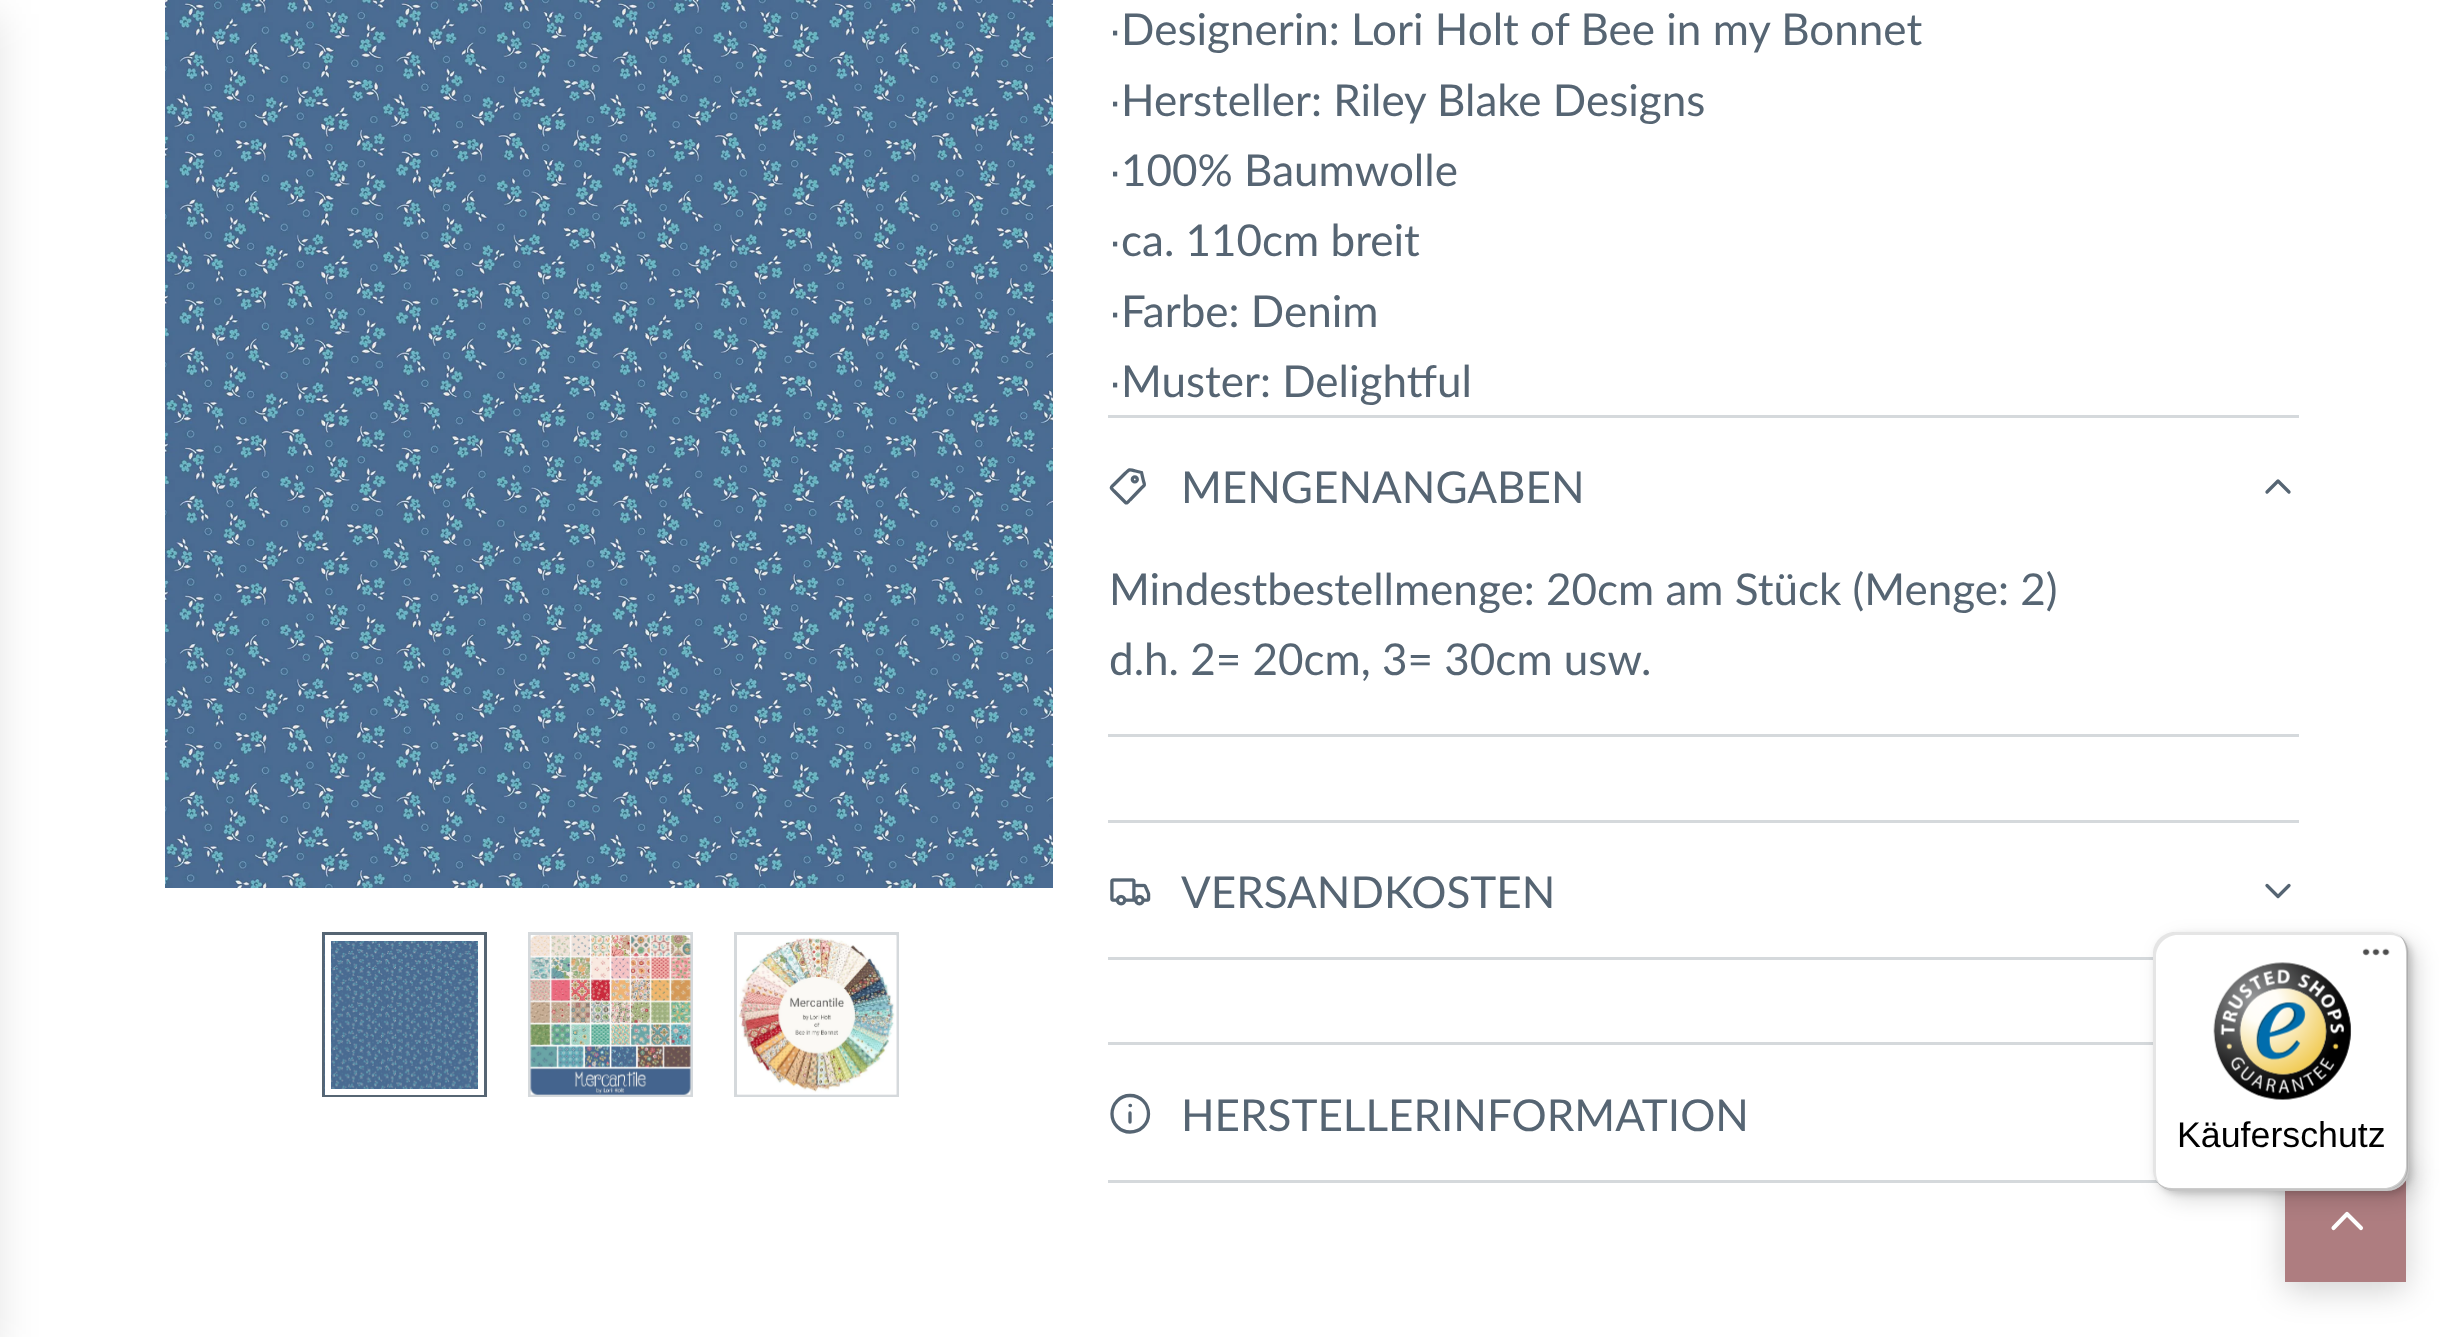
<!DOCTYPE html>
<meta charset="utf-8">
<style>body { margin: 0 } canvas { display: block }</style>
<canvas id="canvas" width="2463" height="1337"></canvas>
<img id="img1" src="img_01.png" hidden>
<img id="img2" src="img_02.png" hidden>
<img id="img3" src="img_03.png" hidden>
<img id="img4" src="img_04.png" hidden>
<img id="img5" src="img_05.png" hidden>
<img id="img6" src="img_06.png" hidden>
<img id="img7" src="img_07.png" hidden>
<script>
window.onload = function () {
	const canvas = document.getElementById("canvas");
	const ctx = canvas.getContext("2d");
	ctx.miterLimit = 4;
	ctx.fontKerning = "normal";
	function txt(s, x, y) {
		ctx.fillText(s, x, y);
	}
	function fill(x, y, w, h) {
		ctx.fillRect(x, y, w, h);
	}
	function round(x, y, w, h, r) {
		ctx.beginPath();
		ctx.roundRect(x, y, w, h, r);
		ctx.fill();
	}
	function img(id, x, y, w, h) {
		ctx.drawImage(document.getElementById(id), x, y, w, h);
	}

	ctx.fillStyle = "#FFFFFF";
	fill(0, 0, 2463, 1337);
	ctx.fillStyle = "rgba(0, 0, 0, 0.1)";
	ctx.filter = "blur(20.5px)";
	ctx.beginPath();
	ctx.rect(-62, 14, 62, 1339);
	ctx.fill();
	ctx.filter = "none";
	img("img1", 165, 0, 888, 888);
	ctx.strokeStyle = "#566573";
	ctx.lineWidth = 3;
	ctx.strokeRect(323.5, 933.5, 162, 162);
	img("img2", 324, 935, 154, 160);
	ctx.strokeStyle = "#FFFFFF";
	ctx.lineWidth = 6;
	ctx.strokeRect(328, 938, 153, 154);
	ctx.strokeStyle = "#D5D9DC";
	ctx.lineWidth = 3;
	ctx.strokeRect(529.5, 933.5, 162, 162);
	img("img3", 530, 935, 161, 160);
	ctx.strokeRect(735.5, 933.5, 162, 162);
	img("img4", 737, 935, 160, 160);
	ctx.fillStyle = "#D5D9DC";
	fill(1108, 415, 1191, 3);
	fill(1108, 734, 1191, 3);
	ctx.beginPath();
	ctx.moveTo(1125.5, 502.5);
	ctx.lineTo(1114, 491);
	ctx.bezierCurveTo(1110, 487, 1110.5, 488, 1114.5, 484);
	ctx.lineTo(1125.5, 473);
	ctx.bezierCurveTo(1130.5, 468.5, 1128.5, 469.5, 1135.5, 471);
	ctx.lineTo(1141.5, 472.5);
	ctx.lineTo(1143, 479);
	ctx.bezierCurveTo(1144.5, 486, 1146, 484, 1141, 488.5);
	ctx.lineTo(1130, 500);
	ctx.bezierCurveTo(1128.5, 501, 1127, 504, 1125.5, 502.5);
	ctx.closePath();
	ctx.strokeStyle = "#566573";
	ctx.lineWidth = 3.3;
	ctx.stroke();
	ctx.beginPath();
	ctx.arc(1134.8, 479.4, 2.5, 0, Math.PI * 2);
	ctx.stroke();
	ctx.beginPath();
	ctx.moveTo(2267, 492);
	ctx.lineTo(2278, 481);
	ctx.lineTo(2289, 492);
	ctx.lineCap = "round";
	ctx.lineJoin = "round";
	ctx.stroke();
	fill(1108, 820, 1191, 3);
	fill(1108, 957, 1045, 3);
	img("img5", 1110, 878, 41, 28);
	ctx.beginPath();
	ctx.moveTo(2267, 885.5);
	ctx.lineTo(2278, 896.5);
	ctx.lineTo(2289, 885.5);
	ctx.stroke();
	fill(1108, 1042, 1045, 3);
	fill(1108, 1180, 1050, 3);
	ctx.beginPath();
	ctx.moveTo(1130, 1113);
	ctx.lineTo(1130, 1122);
	ctx.moveTo(1130, 1105.5);
	ctx.lineTo(1130.5, 1105.5);
	ctx.moveTo(1130, 1132);
	ctx.bezierCurveTo(1140.5, 1132, 1148.5, 1124, 1148.5, 1114);
	ctx.bezierCurveTo(1148.5, 1103.5, 1140.5, 1095.5, 1130, 1095.5);
	ctx.bezierCurveTo(1120, 1095.5, 1112, 1103.5, 1112, 1114);
	ctx.bezierCurveTo(1112, 1124, 1120, 1132, 1130, 1132);
	ctx.closePath();
	ctx.stroke();
	ctx.fillStyle = "rgba(0, 0, 0, 0.18)";
	ctx.filter = "blur(16.5px)";
	ctx.beginPath();
	ctx.rect(2285, 1169, 121, 121);
	ctx.fill();
	ctx.filter = "none";
	ctx.fillStyle = "#AE7D80";
	fill(2285, 1180, 121, 102);
	ctx.beginPath();
	ctx.moveTo(2333.5, 1228);
	ctx.lineTo(2347, 1214);
	ctx.lineTo(2361, 1228);
	ctx.strokeStyle = "#FFFFFF";
	ctx.lineWidth = 4.1;
	ctx.stroke();
	ctx.fillStyle = "rgba(0, 0, 0, 0.15)";
	ctx.filter = "blur(11px)";
	ctx.beginPath();
	ctx.roundRect(2162, 941, 255, 258, 22);
	ctx.fill();
	ctx.filter = "none";
	ctx.filter = "blur(3px)";
	ctx.beginPath();
	ctx.roundRect(2156, 935, 256, 259, 22);
	ctx.fill();
	ctx.filter = "none";
	ctx.fillStyle = "#FFFFFF";
	round(2153, 932, 256, 259, 22);
	ctx.fillStyle = "rgba(0, 0, 0, 0.1)";
	ctx.beginPath();
	ctx.moveTo(2178, 935);
	ctx.lineTo(2390, 935);
	ctx.bezierCurveTo(2395, 935, 2400, 937, 2404, 940);
	ctx.bezierCurveTo(2400, 935, 2394, 932, 2387, 932);
	ctx.lineTo(2175, 932);
	ctx.bezierCurveTo(2163, 932, 2153, 942, 2153, 954);
	ctx.lineTo(2153, 1169);
	ctx.bezierCurveTo(2153, 1176, 2156, 1182, 2161, 1186);
	ctx.bezierCurveTo(2158, 1182, 2156, 1177, 2156, 1172);
	ctx.lineTo(2156, 957);
	ctx.bezierCurveTo(2156, 945, 2166, 935, 2178, 935);
	ctx.closePath();
	ctx.fill();
	ctx.fillStyle = "rgba(0, 0, 0, 0.2)";
	ctx.beginPath();
	ctx.moveTo(2158, 1183);
	ctx.bezierCurveTo(2162, 1188, 2168, 1191, 2175, 1191);
	ctx.lineTo(2387, 1191);
	ctx.bezierCurveTo(2399, 1191, 2409, 1181, 2409, 1169);
	ctx.lineTo(2409, 954);
	ctx.bezierCurveTo(2409, 946, 2405, 939, 2399, 935);
	ctx.bezierCurveTo(2403, 939, 2406, 945, 2406, 952);
	ctx.lineTo(2406, 1166);
	ctx.bezierCurveTo(2406, 1178, 2396, 1188, 2384, 1188);
	ctx.lineTo(2172, 1188);
	ctx.bezierCurveTo(2167, 1188, 2162, 1186, 2158, 1183);
	ctx.closePath();
	ctx.fill();
	ctx.fillStyle = "rgba(50, 50, 50, 0.2)";
	ctx.beginPath();
	ctx.moveTo(2155, 1179);
	ctx.bezierCurveTo(2159, 1186, 2167, 1191, 2175, 1191);
	ctx.lineTo(2387, 1191);
	ctx.bezierCurveTo(2399, 1191, 2409, 1181, 2409, 1169);
	ctx.lineTo(2409, 954);
	ctx.bezierCurveTo(2409, 947, 2405, 940, 2400, 936);
	ctx.bezierCurveTo(2404, 940, 2407, 946, 2407, 953);
	ctx.lineTo(2407, 1167);
	ctx.bezierCurveTo(2407, 1179, 2398, 1189, 2385, 1189);
	ctx.lineTo(2174, 1189);
	ctx.bezierCurveTo(2166, 1189, 2159, 1185, 2155, 1179);
	ctx.closePath();
	ctx.fill();
	ctx.fillStyle = "rgba(255, 255, 255, 0.3)";
	ctx.beginPath();
	ctx.moveTo(2156, 1179);
	ctx.bezierCurveTo(2159, 1186, 2167, 1191, 2175, 1191);
	ctx.lineTo(2387, 1191);
	ctx.bezierCurveTo(2399, 1191, 2409, 1181, 2409, 1169);
	ctx.lineTo(2409, 954);
	ctx.bezierCurveTo(2409, 947, 2406, 941, 2401, 937);
	ctx.bezierCurveTo(2405, 941, 2408, 947, 2408, 953);
	ctx.lineTo(2408, 1167);
	ctx.bezierCurveTo(2408, 1180, 2398, 1189, 2386, 1189);
	ctx.lineTo(2174, 1189);
	ctx.bezierCurveTo(2166, 1189, 2160, 1185, 2156, 1179);
	ctx.closePath();
	ctx.fill();
	img("img6", 2362, 948, 28, 8);
	img("img7", 2213, 962, 139, 138);
	ctx.font = "44px Liberation Sans";
	ctx.fillStyle = "#566573";
	txt("∙", 1109, 45);
	ctx.font = "44px Lato";
	txt("Designerin: Lori Holt of Bee in my Bonnet", 1121, 45);
	ctx.font = "44px Liberation Sans";
	txt("∙", 1109, 116);
	ctx.font = "44px Lato";
	txt("Hersteller: Riley Blake Designs", 1121, 116);
	ctx.font = "44px Liberation Sans";
	txt("∙", 1109, 186);
	ctx.font = "44px Lato";
	txt("100% Baumwolle", 1121, 186);
	ctx.font = "44px Liberation Sans";
	txt("∙", 1109, 256);
	ctx.font = "44px Lato";
	txt("ca. 110cm breit", 1121, 256);
	ctx.font = "44px Liberation Sans";
	txt("∙", 1109, 327);
	ctx.font = "44px Lato";
	txt("Farbe: Denim", 1121, 327);
	ctx.font = "44px Liberation Sans";
	txt("∙", 1109, 397);
	ctx.font = "44px Lato";
	txt("Muster: Delightful", 1121, 397);
	txt("MENGENANGABEN", 1181, 503);
	txt("Mindestbestellmenge: 20cm am Stück (Menge: 2)", 1109, 605);
	txt("d.h. 2= 20cm, 3= 30cm usw.", 1109, 675);
	txt("VERSANDKOSTEN", 1181, 908);
	txt("HERSTELLERINFORMATION", 1181, 1131);
	ctx.font = "35.75px Liberation Sans";
	ctx.fillStyle = "#000000";
	txt("Käuferschutz", 2177, 1147);
};
</script>
